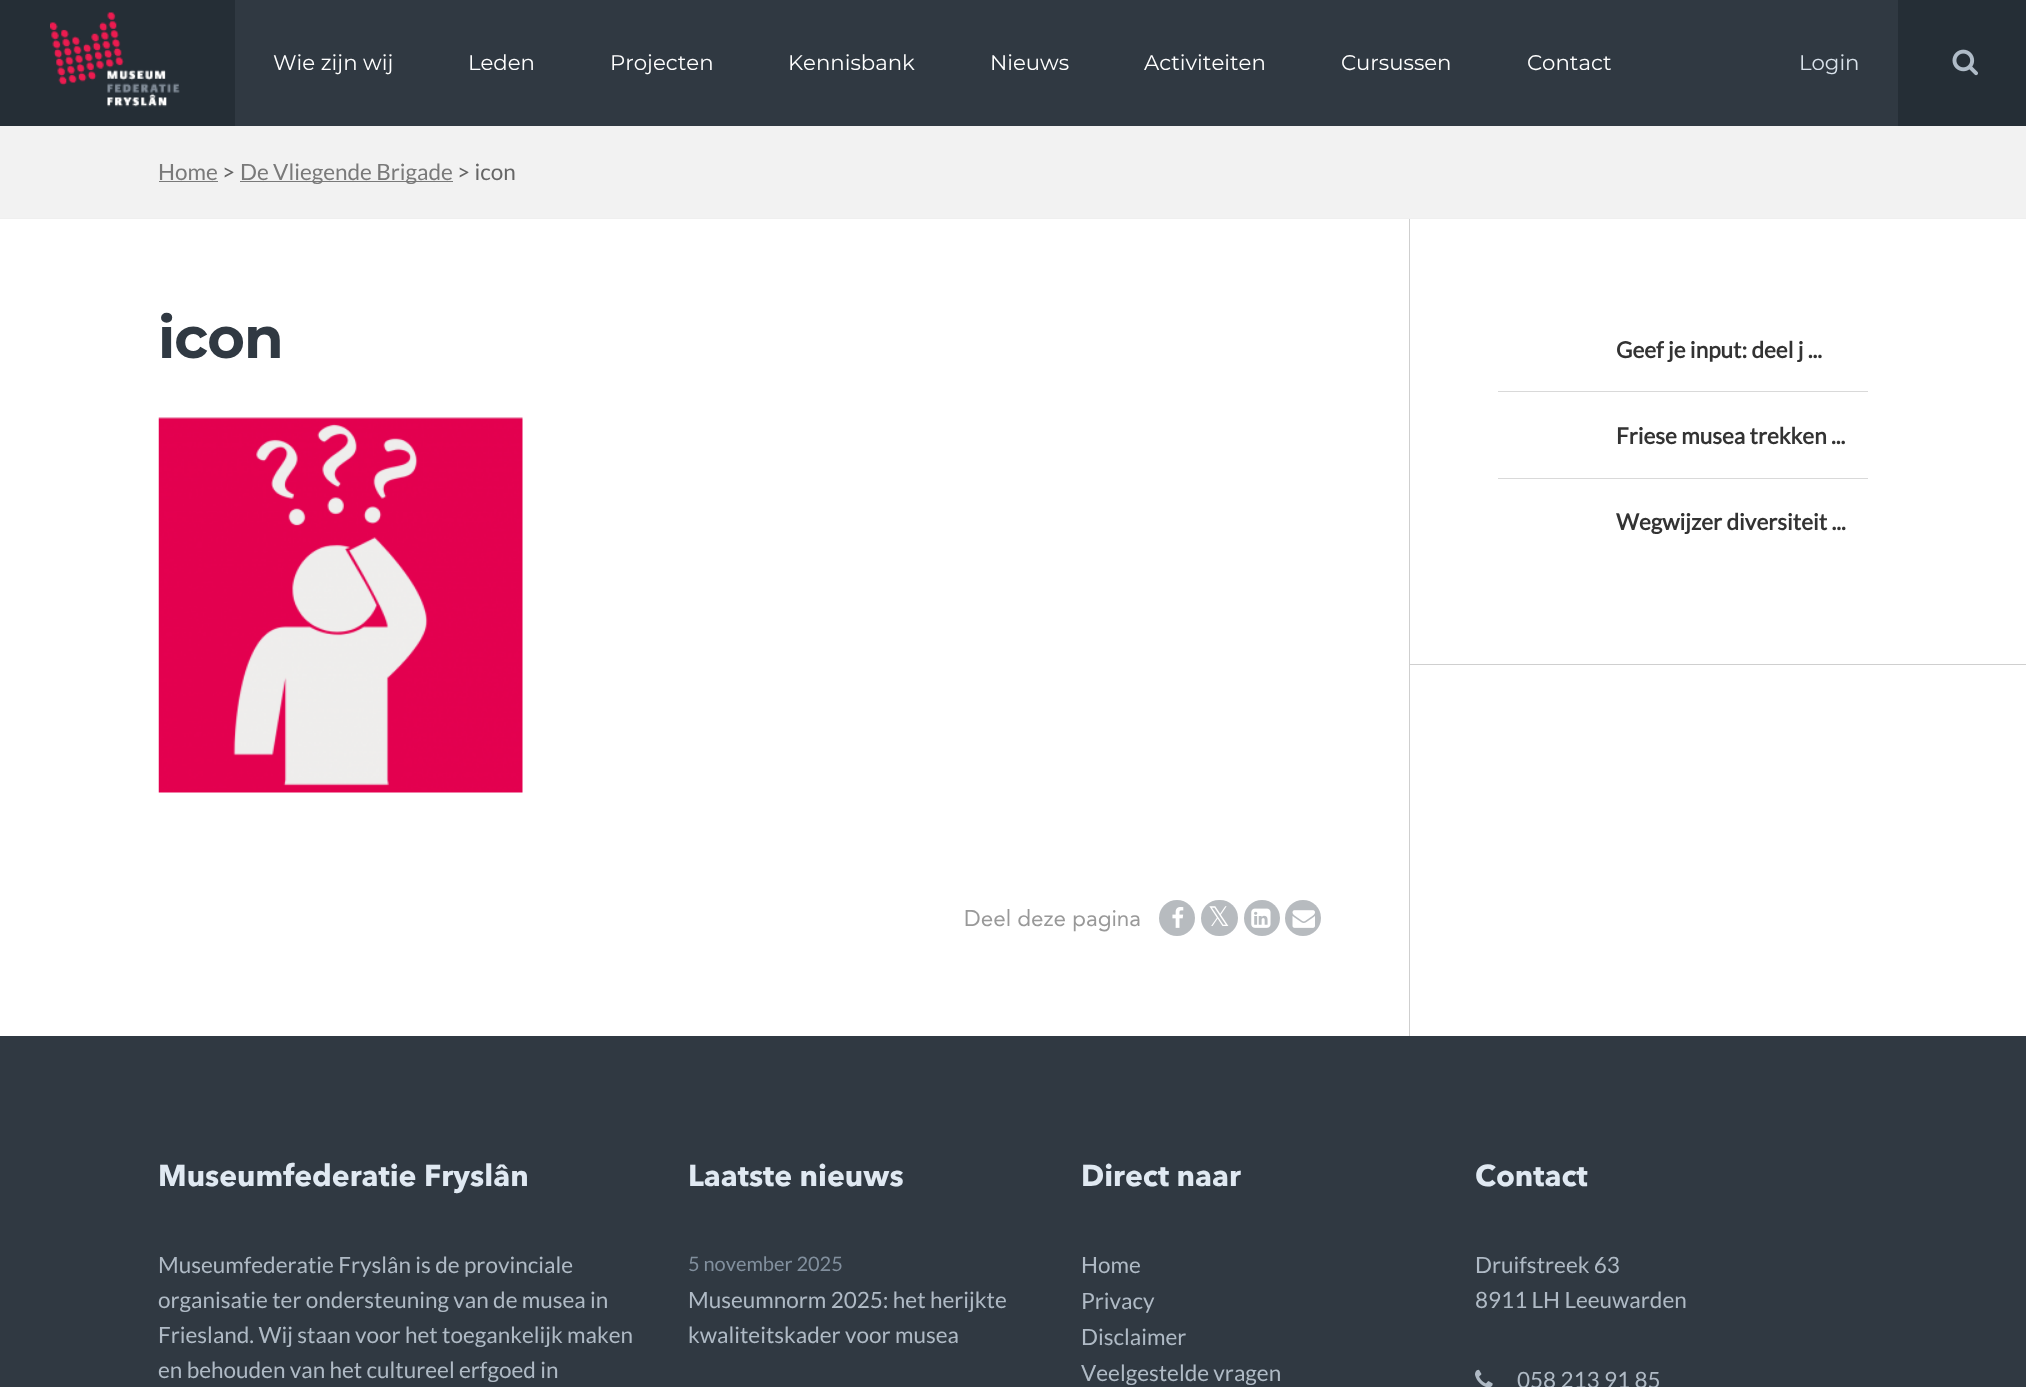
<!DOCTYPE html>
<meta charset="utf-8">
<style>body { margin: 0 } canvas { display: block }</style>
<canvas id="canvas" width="2026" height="1387"></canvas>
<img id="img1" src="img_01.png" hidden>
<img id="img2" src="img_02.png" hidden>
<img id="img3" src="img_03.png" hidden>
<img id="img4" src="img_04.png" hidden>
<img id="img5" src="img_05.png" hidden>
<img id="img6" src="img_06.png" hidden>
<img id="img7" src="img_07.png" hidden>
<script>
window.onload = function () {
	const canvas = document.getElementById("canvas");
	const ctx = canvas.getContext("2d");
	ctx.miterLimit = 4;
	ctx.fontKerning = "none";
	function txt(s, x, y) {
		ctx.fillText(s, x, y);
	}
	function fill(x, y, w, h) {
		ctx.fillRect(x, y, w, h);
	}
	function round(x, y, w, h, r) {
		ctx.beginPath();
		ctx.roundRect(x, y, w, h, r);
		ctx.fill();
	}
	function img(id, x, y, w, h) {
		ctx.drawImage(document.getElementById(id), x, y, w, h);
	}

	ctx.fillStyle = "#FFFFFF";
	fill(0, 0, 2026, 1387);
	ctx.fillStyle = "#303942";
	fill(235, 0, 1663, 126);
	ctx.fillStyle = "#252E36";
	fill(0, 0, 235, 126);
	img("img1", 50, 12, 130, 95);
	fill(1898, 0, 128, 126);
	img("img2", 1952, 49, 26, 27);
	ctx.fillStyle = "#F2F2F2";
	fill(0, 126, 2026, 92);
	ctx.fillStyle = "#EFEFEF";
	fill(0, 218, 2026, 1);
	ctx.fillStyle = "#7A7A7A";
	fill(159, 181, 59, 1);
	fill(240, 181, 213, 1);
	ctx.fillStyle = "#CFCFCF";
	fill(1409, 219, 1, 817);
	img("img3", 158, 417, 365, 376);
	ctx.fillStyle = "#B7BBBF";
	ctx.beginPath();
	ctx.arc(1177, 918, 18, 0, Math.PI * 2);
	ctx.fill();
	img("img4", 1172, 907, 12, 21);
	round(1201, 900, 37, 36, 18);
	ctx.beginPath();
	ctx.arc(1262, 918, 18, 0, Math.PI * 2);
	ctx.fill();
	img("img5", 1251, 908, 20, 20);
	ctx.beginPath();
	ctx.arc(1303, 918, 18, 0, Math.PI * 2);
	ctx.fill();
	img("img6", 1292, 910, 23, 18);
	ctx.fillStyle = "#D9D9D9";
	fill(1498, 391, 370, 1);
	fill(1498, 478, 370, 1);
	ctx.fillStyle = "#CFCFCF";
	fill(1410, 664, 616, 1);
	ctx.fillStyle = "#303942";
	fill(0, 1036, 2026, 351);
	img("img7", 1475, 1369, 18, 18);
	ctx.font = "100 21.25px 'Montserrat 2'";
	ctx.fillStyle = "#FFFFFF";
	txt("Wie zijn wij", 273, 70);
	txt("Leden", 468, 70);
	txt("Projecten", 610, 70);
	txt("Kennisbank", 788, 70);
	txt("Nieuws", 990, 70);
	txt("Activiteiten", 1144, 70);
	txt("Cursussen", 1341, 70);
	txt("Contact", 1527, 70);
	ctx.fillStyle = "#D9E2EB";
	txt("Login", 1799, 70);
	ctx.font = "22.5px Lato";
	ctx.fillStyle = "#7A7A7A";
	txt("Home", 158, 180);
	ctx.fillStyle = "#666666";
	txt(">", 222, 180);
	ctx.fillStyle = "#7A7A7A";
	txt("De Vliegende Brigade", 240, 180);
	ctx.fillStyle = "#666666";
	txt("> icon", 457, 180);
	ctx.letterSpacing = "-1px";
	ctx.font = "100 57.5px Montserrat";
	ctx.fillStyle = "#303942";
	txt("icon", 158, 358);
	ctx.letterSpacing = "0px";
	ctx.font = "22.5px Avenir";
	ctx.fillStyle = "#999999";
	txt("Deel deze pagina", 964, 926);
	ctx.font = "27px DejaVu Sans";
	ctx.fillStyle = "#FFFFFF";
	txt("𝕏", 1208, 926);
	ctx.font = "bold 22.5px Lato";
	ctx.fillStyle = "#333333";
	txt("Geef je input: deel j ...", 1616, 358);
	txt("Friese musea trekken ...", 1616, 444);
	txt("Wegwijzer diversiteit ...", 1616, 530);
	ctx.font = "bold 30px Avenir Next";
	ctx.fillStyle = "#E0E9F2";
	txt("Museumfederatie Fryslân", 158, 1186);
	ctx.font = "22.5px Lato";
	ctx.fillStyle = "#AFBAC5";
	txt("Museumfederatie Fryslân is de provinciale", 158, 1273);
	txt("organisatie ter ondersteuning van de musea in", 158, 1308);
	txt("Friesland. Wij staan voor het toegankelijk maken", 158, 1343);
	txt("en behouden van het cultureel erfgoed in", 158, 1378);
	ctx.font = "bold 30px Avenir Next";
	ctx.fillStyle = "#E0E9F2";
	txt("Laatste nieuws", 688, 1186);
	ctx.font = "20px Lato";
	ctx.fillStyle = "#818F9D";
	txt("5 november 2025", 688, 1271);
	ctx.font = "22.5px Lato";
	ctx.fillStyle = "#AFBAC5";
	txt("Museumnorm 2025: het herijkte", 688, 1308);
	txt("kwaliteitskader voor musea", 688, 1343);
	ctx.font = "bold 30px Avenir Next";
	ctx.fillStyle = "#E0E9F2";
	txt("Direct naar", 1081, 1186);
	ctx.font = "22.5px Lato";
	ctx.fillStyle = "#AFBAC5";
	txt("Home", 1081, 1273);
	txt("Privacy", 1081, 1309);
	txt("Disclaimer", 1081, 1345);
	txt("Veelgestelde vragen", 1081, 1381);
	ctx.font = "bold 30px Avenir Next";
	ctx.fillStyle = "#E0E9F2";
	txt("Contact", 1475, 1186);
	ctx.font = "22.5px Lato";
	ctx.fillStyle = "#AFBAC5";
	txt("Druifstreek 63", 1475, 1273);
	txt("8911 LH Leeuwarden", 1475, 1308);
	txt("058 213 91 85", 1517, 1388);
};
</script>
